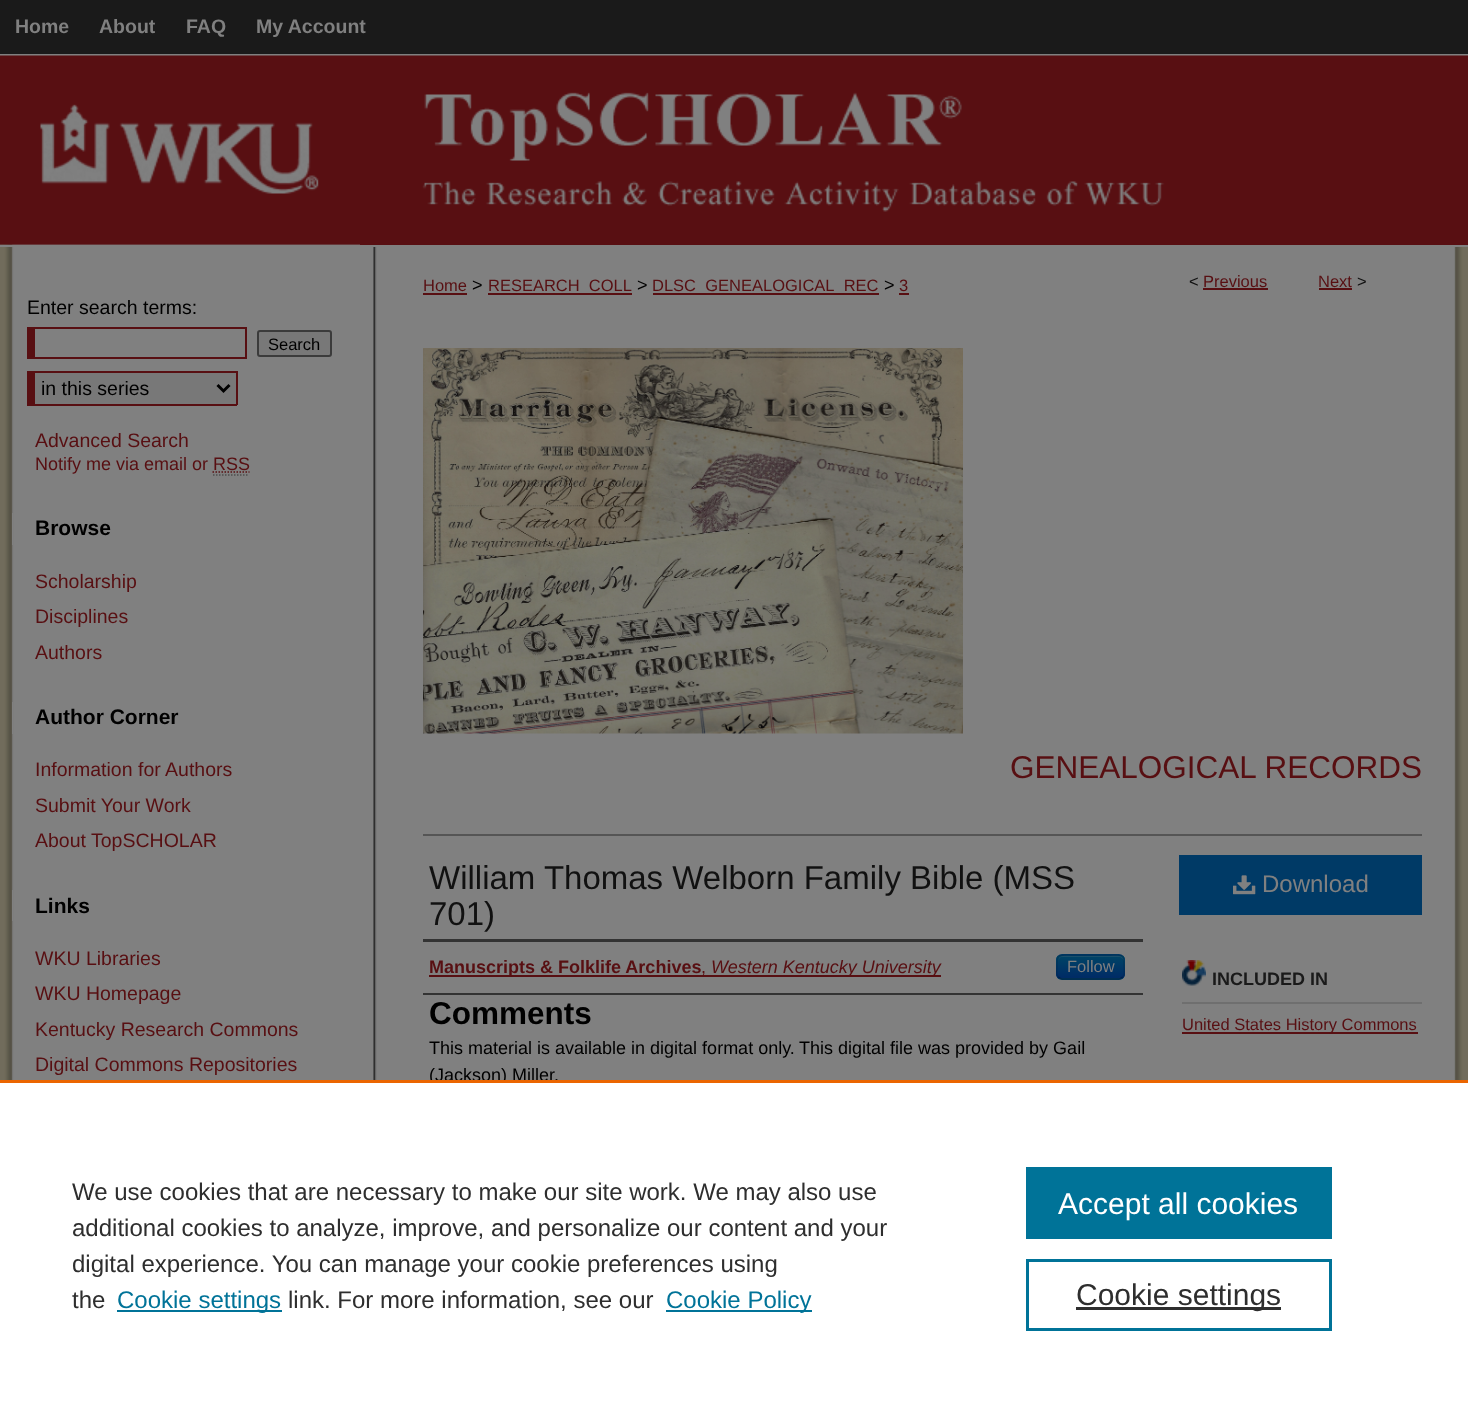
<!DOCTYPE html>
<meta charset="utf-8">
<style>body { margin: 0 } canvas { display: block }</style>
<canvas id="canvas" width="1468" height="1410"></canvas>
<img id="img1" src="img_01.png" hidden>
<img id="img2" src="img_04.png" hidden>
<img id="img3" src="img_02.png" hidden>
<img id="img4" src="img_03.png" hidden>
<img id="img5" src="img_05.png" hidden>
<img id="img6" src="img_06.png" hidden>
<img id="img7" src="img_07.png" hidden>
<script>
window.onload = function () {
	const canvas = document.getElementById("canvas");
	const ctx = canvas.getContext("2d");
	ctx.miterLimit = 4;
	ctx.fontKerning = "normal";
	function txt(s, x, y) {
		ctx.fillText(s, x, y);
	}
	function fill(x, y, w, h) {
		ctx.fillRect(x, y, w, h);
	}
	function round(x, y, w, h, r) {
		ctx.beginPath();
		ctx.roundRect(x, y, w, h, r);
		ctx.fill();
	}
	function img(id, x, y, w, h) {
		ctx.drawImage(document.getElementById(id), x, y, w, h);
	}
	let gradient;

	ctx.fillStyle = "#FFFFFF";
	fill(0, 0, 1468, 1410);
	img("img1", 0, 244, 360, 1);
	ctx.fillStyle = "#1A1A1A";
	fill(0, 0, 1468, 54);
	ctx.fillStyle = "#808080";
	fill(0, 54, 1468, 2);
	img("img2", 0, 244, 1468, 836);
	img("img3", 0, 55, 360, 190);
	ctx.fillStyle = "#580F12";
	fill(360, 212, 1108, 33);
	img("img4", 360, 55, 1108, 157);
	ctx.fillStyle = "#808080";
	fill(0, 245, 1468, 2);
	ctx.fillStyle = "#580F12";
	fill(27, 327, 219, 2);
	fill(245, 327, 2, 32);
	fill(27, 357, 219, 2);
	fill(27, 327, 8, 32);
	ctx.fillStyle = "#787878";
	ctx.beginPath();
	ctx.roundRect(258, 331, 73, 25, 2);
	ctx.fill();
	ctx.strokeStyle = "#3B3B3B";
	ctx.lineWidth = 2;
	ctx.stroke();
	fill(35, 373, 201, 31);
	ctx.fillStyle = "#580F12";
	fill(27, 371, 210, 2);
	fill(236, 371, 2, 34);
	fill(27, 404, 210, 2);
	fill(27, 371, 8, 34);
	ctx.beginPath();
	ctx.moveTo(217.5, 385);
	ctx.lineTo(223.5, 391);
	ctx.lineTo(229.5, 385);
	ctx.strokeStyle = "#000000";
	ctx.lineWidth = 3;
	ctx.stroke();
	ctx.beginPath();
	ctx.moveTo(212.5, 472);
	ctx.lineTo(249.5, 472);
	ctx.strokeStyle = "#580F12";
	ctx.lineWidth = 1.5;
	ctx.setLineDash([1.5, 1.5]);
	ctx.stroke();
	ctx.beginPath();
	ctx.moveTo(213, 475);
	ctx.lineTo(249, 475);
	ctx.strokeStyle = "#4D4D4D";
	ctx.stroke();
	ctx.fillStyle = "#808080";
	fill(12, 513, 1, 32);
	fill(12, 702, 1, 32);
	fill(12, 890, 1, 31);
	ctx.fillStyle = "#580F12";
	fill(423, 293, 44, 2);
	fill(488, 293, 144, 2);
	fill(653, 293, 226, 2);
	fill(899, 293, 10, 2);
	fill(1203, 288, 65, 2);
	fill(1319, 288, 33, 2);
	img("img5", 423, 348, 540, 386);
	ctx.fillStyle = "#555555";
	fill(423, 834, 999, 2);
	ctx.fillStyle = "#333333";
	fill(423, 939, 720, 3);
	fill(423, 993, 720, 2);
	ctx.fillStyle = "#580F12";
	fill(429, 975, 512, 2);
	ctx.fillStyle = "#003A66";
	round(1056, 954, 69, 26, 6);
	ctx.save();
	ctx.beginPath();
	ctx.roundRect(1056, 954, 69, 26, 6);
	ctx.clip();
	gradient = ctx.createLinearGradient(1091, 956, 1091, 978);
	gradient.addColorStop(0, "#004466");
	gradient.addColorStop(1, "#002B66");
	ctx.fillStyle = gradient;
	fill(1056, 956, 69, 22);
	ctx.restore();
	ctx.fillStyle = "rgba(128, 128, 128, 0.2)";
	ctx.beginPath();
	ctx.moveTo(1062, 957);
	ctx.lineTo(1119, 957);
	ctx.bezierCurveTo(1121, 957, 1124, 959, 1124, 962);
	ctx.bezierCurveTo(1124, 954, 1116, 956, 1110, 956);
	ctx.lineTo(1072, 956);
	ctx.bezierCurveTo(1066, 956, 1058, 954, 1058, 962);
	ctx.bezierCurveTo(1058, 959, 1060, 957, 1062, 957);
	ctx.closePath();
	ctx.fill();
	ctx.beginPath();
	ctx.moveTo(1122.5, 977);
	ctx.bezierCurveTo(1121.5, 978, 1120.5, 979, 1119, 979);
	ctx.lineTo(1062, 979);
	ctx.bezierCurveTo(1060.5, 979, 1059.5, 978, 1058.5, 977);
	ctx.strokeStyle = "rgba(0, 0, 0, 0.25)";
	ctx.setLineDash([]);
	ctx.stroke();
	ctx.beginPath();
	ctx.moveTo(1058.5, 977);
	ctx.bezierCurveTo(1055.5, 974.5, 1057, 970, 1057, 967);
	ctx.bezierCurveTo(1057, 953.5, 1057.5, 955, 1071.5, 955);
	ctx.lineTo(1109.5, 955);
	ctx.bezierCurveTo(1123.5, 955, 1124, 953.5, 1124, 967);
	ctx.bezierCurveTo(1124, 970, 1125.5, 974.5, 1122.5, 977);
	ctx.strokeStyle = "rgba(0, 0, 0, 0.1)";
	ctx.stroke();
	ctx.fillStyle = "#003A66";
	fill(1179, 855, 243, 60);
	img("img6", 1233, 875, 23, 20);
	img("img7", 1182, 960, 24, 26);
	ctx.fillStyle = "#6F6F6F";
	fill(1182, 1002, 240, 2);
	ctx.fillStyle = "#580F12";
	fill(1182, 1032, 236, 2);
	ctx.fillStyle = "#007398";
	fill(117, 1310, 165, 2);
	fill(666, 1310, 146, 2);
	fill(1026, 1167, 306, 72);
	ctx.strokeStyle = "#007398";
	ctx.lineWidth = 3;
	ctx.strokeRect(1027.5, 1260.5, 303, 69);
	ctx.fillStyle = "#2E2E2E";
	fill(1076, 1307, 205, 3);
	ctx.font = "bold 19.5px Liberation Sans";
	ctx.fillStyle = "#808080";
	txt("Home", 15, 33);
	txt("About", 99, 33);
	txt("FAQ", 186, 33);
	txt("My Account", 256, 33);
	ctx.font = "19.5px Liberation Sans";
	ctx.fillStyle = "#000000";
	txt("Enter search terms:", 27, 314);
	ctx.font = "16.5px Liberation Sans";
	txt("Search", 268, 350);
	ctx.font = "19.5px Liberation Sans";
	txt("in this series", 41, 395);
	ctx.fillStyle = "#580F12";
	txt("Advanced Search", 35, 447);
	ctx.font = "18px Liberation Sans";
	txt("Notify me via email or RSS", 35, 470);
	ctx.font = "bold 21px Liberation Sans";
	ctx.fillStyle = "#000000";
	txt("Browse", 35, 535);
	ctx.font = "19.5px Liberation Sans";
	ctx.fillStyle = "#580F12";
	txt("Scholarship", 35, 588);
	txt("Disciplines", 35, 623);
	txt("Authors", 35, 659);
	ctx.font = "bold 21px Liberation Sans";
	ctx.fillStyle = "#000000";
	txt("Author Corner", 35, 724);
	ctx.font = "19.5px Liberation Sans";
	ctx.fillStyle = "#580F12";
	txt("Information for Authors", 35, 776);
	txt("Submit Your Work", 35, 812);
	txt("About TopSCHOLAR", 35, 847);
	ctx.font = "bold 21px Liberation Sans";
	ctx.fillStyle = "#000000";
	txt("Links", 35, 913);
	ctx.font = "19.5px Liberation Sans";
	ctx.fillStyle = "#580F12";
	txt("WKU Libraries", 35, 965);
	txt("WKU Homepage", 35, 1000);
	txt("Kentucky Research Commons", 35, 1036);
	txt("Digital Commons Repositories", 35, 1071);
	ctx.font = "16.5px Liberation Sans";
	txt("Home", 423, 291);
	ctx.font = "18px Liberation Sans";
	ctx.fillStyle = "#000000";
	txt(">", 472, 291);
	ctx.font = "16.5px Liberation Sans";
	ctx.fillStyle = "#580F12";
	txt("RESEARCH_COLL", 488, 291);
	ctx.font = "18px Liberation Sans";
	ctx.fillStyle = "#000000";
	txt(">", 637, 291);
	ctx.font = "16.5px Liberation Sans";
	ctx.fillStyle = "#580F12";
	txt("DLSC_GENEALOGICAL_REC", 652, 291);
	ctx.font = "18px Liberation Sans";
	ctx.fillStyle = "#000000";
	txt(">", 884, 291);
	ctx.font = "16.5px Liberation Sans";
	ctx.fillStyle = "#580F12";
	txt("3", 899, 291);
	ctx.fillStyle = "#111111";
	txt("<", 1189, 287);
	ctx.fillStyle = "#580F12";
	txt("Previous", 1203, 287);
	txt("Next", 1318, 287);
	ctx.fillStyle = "#111111";
	txt(">", 1357, 287);
	ctx.font = "31.5px Liberation Sans";
	ctx.fillStyle = "#580F12";
	txt("GENEALOGICAL RECORDS", 1010, 778);
	ctx.font = "33px Liberation Sans";
	ctx.fillStyle = "#111111";
	txt("William Thomas Welborn Family Bible (MSS", 429, 889);
	txt("701)", 429, 925);
	ctx.font = "bold 18px Liberation Sans";
	ctx.fillStyle = "#580F12";
	txt("Manuscripts & Folklife Archives", 429, 973);
	ctx.font = "18px Liberation Sans";
	txt(",", 701, 973);
	ctx.font = "italic 18px Liberation Sans";
	txt("Western Kentucky University", 711, 973);
	ctx.font = "16.5px Liberation Sans";
	ctx.fillStyle = "#808080";
	txt("Follow", 1067, 972);
	ctx.font = "bold 31.5px Liberation Sans";
	ctx.fillStyle = "#000000";
	txt("Comments", 429, 1024);
	ctx.font = "18px Liberation Sans";
	txt("This material is available in digital format only.", 429, 1054);
	txt("This digital file was provided by Gail", 799, 1054);
	txt("(Jackson) Miller.", 429, 1081);
	ctx.font = "24px Liberation Sans";
	ctx.fillStyle = "#808080";
	txt("Download", 1262, 892);
	ctx.font = "bold 18px Liberation Sans";
	ctx.fillStyle = "#1A1A1A";
	txt("INCLUDED IN", 1212, 985);
	ctx.font = "16.5px Liberation Sans";
	ctx.fillStyle = "#580F12";
	txt("United States History Commons", 1182, 1030);
	ctx.fillStyle = "#FFFFFF";
	fill(432, 1083, 72, 2);
	ctx.fillStyle = "#EB6500";
	fill(0, 1080, 1468, 3);
	ctx.font = "24px Liberation Sans";
	ctx.fillStyle = "#2E2E2E";
	txt("We use cookies that are necessary to make our site work. We may also use", 72, 1200);
	txt("additional cookies to analyze, improve, and personalize our content and your", 72, 1236);
	txt("digital experience. You can manage your cookie preferences using", 72, 1272);
	txt("the", 72, 1308);
	ctx.fillStyle = "#007398";
	txt("Cookie settings", 117, 1308);
	ctx.fillStyle = "#2E2E2E";
	txt("link. For more information, see our", 288, 1308);
	ctx.fillStyle = "#007398";
	txt("Cookie Policy", 666, 1308);
	ctx.font = "30px Liberation Sans";
	ctx.fillStyle = "#FFFFFF";
	txt("Accept all cookies", 1058, 1214);
	ctx.fillStyle = "#2E2E2E";
	txt("Cookie settings", 1076, 1305);
};
</script>
